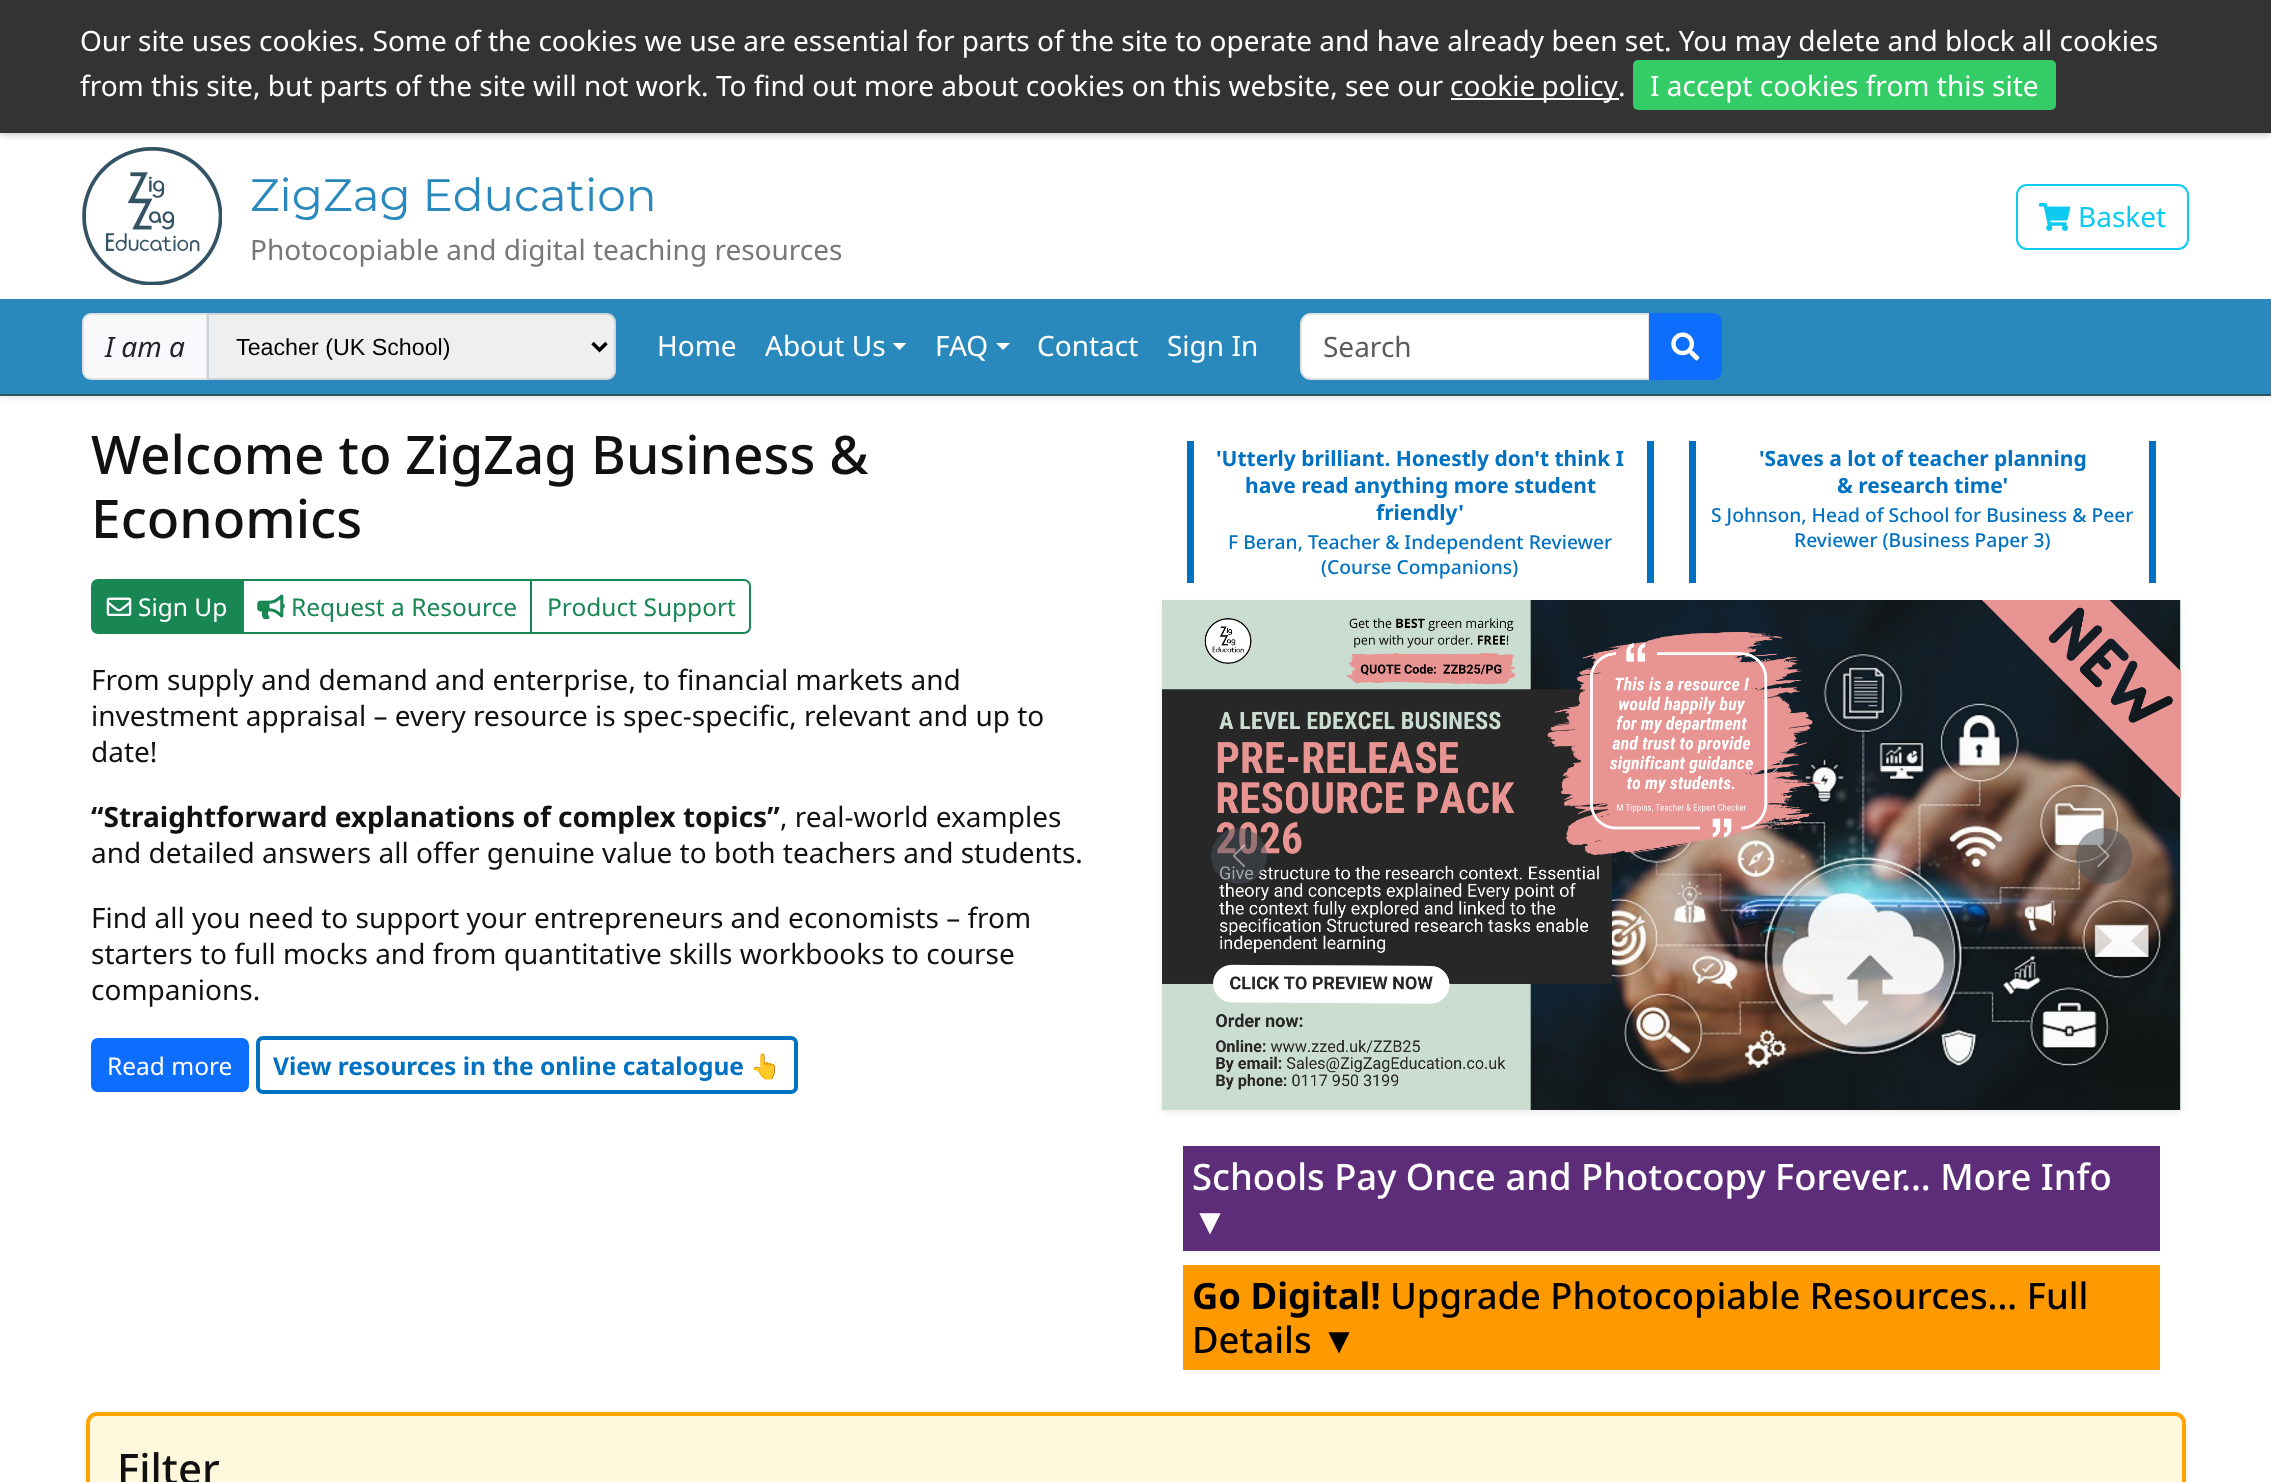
<!DOCTYPE html>
<meta charset="utf-8">
<style>body { margin: 0 } canvas { display: block }</style>
<canvas id="canvas" width="2271" height="1482"></canvas>
<img id="img1" src="img_01.png" hidden>
<img id="img2" src="img_02.png" hidden>
<img id="img3" src="img_03.png" hidden>
<img id="img4" src="img_04.png" hidden>
<img id="img5" src="img_05.png" hidden>
<img id="img6" src="img_06.png" hidden>
<img id="img7" src="img_07.png" hidden>
<img id="img8" src="img_08.png" hidden>
<script>
window.onload = function () {
	const canvas = document.getElementById("canvas");
	const ctx = canvas.getContext("2d");
	ctx.miterLimit = 4;
	ctx.fontKerning = "normal";
	function txt(s, x, y) {
		ctx.fillText(s, x, y);
	}
	function fill(x, y, w, h) {
		ctx.fillRect(x, y, w, h);
	}
	function round(x, y, w, h, r) {
		ctx.beginPath();
		ctx.roundRect(x, y, w, h, r);
		ctx.fill();
	}
	function img(id, x, y, w, h) {
		ctx.drawImage(document.getElementById(id), x, y, w, h);
	}

	ctx.fillStyle = "#FFFFFF";
	fill(0, 0, 2271, 1482);
	img("img1", 82, 147, 140, 138);
	ctx.fillStyle = "rgba(0, 0, 0, 0.33)";
	ctx.filter = "blur(4.5px)";
	ctx.beginPath();
	ctx.rect(0, 0, 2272, 133);
	ctx.fill();
	ctx.filter = "none";
	ctx.fillStyle = "#333333";
	fill(0, 0, 2271, 133);
	ctx.fillStyle = "#FFFFFF";
	fill(1451, 98, 168, 2);
	ctx.fillStyle = "#33CC66";
	round(1633, 60, 423, 50, 5);
	ctx.beginPath();
	ctx.roundRect(2017, 185, 171, 64, 10);
	ctx.strokeStyle = "#0DCAF0";
	ctx.lineWidth = 2;
	ctx.stroke();
	img("img2", 2038, 203, 33, 28);
	ctx.fillStyle = "rgba(0, 0, 0, 0.07)";
	ctx.filter = "blur(3.5px)";
	ctx.beginPath();
	ctx.rect(0, 303, 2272, 96);
	ctx.fill();
	ctx.filter = "none";
	ctx.fillStyle = "#2989BC";
	fill(0, 299, 2271, 95);
	ctx.fillStyle = "#335263";
	fill(0, 394, 2271, 2);
	ctx.fillStyle = "#F8F9FA";
	ctx.beginPath();
	ctx.roundRect(83, 314, 124, 65, [8, 0, 0, 8]);
	ctx.fill();
	ctx.strokeStyle = "#DEE2E6";
	ctx.stroke();
	ctx.fillStyle = "#EFEFEF";
	ctx.beginPath();
	ctx.roundRect(208, 314, 407, 65, [0, 8, 8, 0]);
	ctx.fill();
	ctx.strokeStyle = "#CED4DA";
	ctx.stroke();
	ctx.beginPath();
	ctx.moveTo(592.5, 343);
	ctx.lineTo(599.5, 350);
	ctx.lineTo(606.5, 343);
	ctx.strokeStyle = "#000000";
	ctx.lineWidth = 3.5;
	ctx.stroke();
	ctx.fillStyle = "#FFFFFF";
	ctx.beginPath();
	ctx.moveTo(892.5, 343);
	ctx.lineTo(906.5, 343);
	ctx.lineTo(899.5, 350);
	ctx.closePath();
	ctx.fill();
	ctx.beginPath();
	ctx.moveTo(996, 343);
	ctx.lineTo(1010, 343);
	ctx.lineTo(1003, 350);
	ctx.closePath();
	ctx.fill();
	ctx.beginPath();
	ctx.roundRect(1301, 314, 348, 65, [10, 0, 0, 10]);
	ctx.fill();
	ctx.strokeStyle = "#DEE2E6";
	ctx.lineWidth = 2;
	ctx.stroke();
	ctx.fillStyle = "#0D6EFD";
	ctx.beginPath();
	ctx.roundRect(1650, 314, 71, 65, [0, 8, 8, 0]);
	ctx.fill();
	ctx.strokeStyle = "#0D6EFD";
	ctx.stroke();
	img("img3", 1671, 332, 29, 29);
	ctx.fillStyle = "#198754";
	ctx.beginPath();
	ctx.roundRect(92, 580, 150, 53, [6, 0, 0, 6]);
	ctx.fill();
	ctx.strokeStyle = "#198754";
	ctx.stroke();
	img("img4", 106, 597, 26, 19);
	ctx.strokeRect(243, 580, 288, 53);
	img("img5", 257, 594, 28, 26);
	ctx.beginPath();
	ctx.roundRect(531, 580, 219, 53, [0, 6, 6, 0]);
	ctx.stroke();
	ctx.fillStyle = "#0D6EFD";
	ctx.beginPath();
	ctx.roundRect(92, 1039, 156, 52, 6);
	ctx.fill();
	ctx.strokeStyle = "#0D6EFD";
	ctx.stroke();
	ctx.beginPath();
	ctx.roundRect(258, 1038, 538, 54, 5);
	ctx.strokeStyle = "#0171C1";
	ctx.lineWidth = 4;
	ctx.stroke();
	ctx.fillStyle = "#0071C1";
	fill(1647, 441, 7, 142);
	fill(1187, 441, 7, 142);
	fill(2149, 441, 7, 142);
	fill(1689, 441, 7, 142);
	ctx.fillStyle = "rgba(0, 0, 0, 0.07)";
	ctx.filter = "blur(3.5px)";
	ctx.beginPath();
	ctx.rect(1162, 604, 1019, 509);
	ctx.fill();
	ctx.filter = "none";
	img("img6", 1162, 600, 1019, 510);
	ctx.fillStyle = "rgba(73, 80, 87, 0.5)";
	ctx.beginPath();
	ctx.arc(1239, 856, 28, 0, Math.PI * 2);
	ctx.fill();
	img("img7", 1233, 844, 12, 23);
	ctx.beginPath();
	ctx.arc(2104, 856, 28, 0, Math.PI * 2);
	ctx.fill();
	img("img8", 2097, 844, 13, 23);
	ctx.fillStyle = "#5E2D79";
	fill(1183, 1146, 977, 105);
	ctx.fillStyle = "#FF9900";
	fill(1183, 1265, 977, 105);
	ctx.fillStyle = "rgba(0, 0, 0, 0.07)";
	ctx.filter = "blur(3.5px)";
	ctx.beginPath();
	ctx.roundRect(86, 1416, 2100, 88, 11);
	ctx.fill();
	ctx.filter = "none";
	ctx.fillStyle = "#FFF8DC";
	ctx.beginPath();
	ctx.roundRect(88, 1414, 2096, 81, 9);
	ctx.fill();
	ctx.strokeStyle = "#FFA500";
	ctx.stroke();
	ctx.font = "28px Noto Sans";
	ctx.fillStyle = "#FFFFFF";
	txt("Our site uses cookies. Some of the cookies we use are essential for parts of the site to operate and have already been set. You may delete and block all cookies", 80, 51);
	txt("from this site, but parts of the site will not work. To find out more about cookies on this website, see our", 80, 96);
	ctx.wordSpacing = "-1px";
	txt("cookie policy", 1450, 96);
	ctx.wordSpacing = "0px";
	txt(".", 1618, 96);
	txt("I accept cookies from this site", 1650, 96);
	ctx.font = "100 45.5px Montserrat";
	ctx.fillStyle = "#2989BC";
	txt("ZigZag Education", 250, 211);
	ctx.font = "28px Noto Sans";
	ctx.fillStyle = "#777777";
	txt("Photocopiable and digital teaching resources", 250, 260);
	ctx.fillStyle = "#0DCAF0";
	txt("Basket", 2078, 227);
	ctx.font = "italic 28px Noto Sans";
	ctx.fillStyle = "#212529";
	txt("I am a", 105, 357);
	ctx.font = "23.25px Liberation Sans";
	ctx.fillStyle = "#000000";
	txt("Teacher (UK School)", 236, 355);
	ctx.font = "28px Noto Sans";
	ctx.fillStyle = "#FFFFFF";
	txt("Home", 657, 356);
	txt("About Us", 765, 356);
	txt("FAQ", 935, 356);
	txt("Contact", 1037, 356);
	txt("Sign In", 1167, 356);
	ctx.fillStyle = "#595C5F";
	txt("Search", 1323, 357);
	ctx.font = "500 53.25px Noto Sans";
	ctx.fillStyle = "#111111";
	txt("Welcome to ZigZag Business &", 91, 474);
	txt("Economics", 91, 538);
	ctx.font = "24.5px Noto Sans";
	ctx.fillStyle = "#FFFFFF";
	txt("Sign Up", 138, 616);
	ctx.fillStyle = "#198754";
	txt("Request a Resource", 291, 616);
	txt("Product Support", 547, 616);
	ctx.font = "28px Noto Sans";
	ctx.fillStyle = "#111111";
	txt("From supply and demand and enterprise, to financial markets and", 91, 690);
	txt("investment appraisal – every resource is spec-specific, relevant and up to", 91, 726);
	txt("date!", 91, 762);
	ctx.font = "bold 28px Noto Sans";
	txt("“Straightforward explanations of complex topics”", 91, 827);
	ctx.font = "28px Noto Sans";
	txt(", real-world examples", 780, 827);
	txt("and detailed answers all offer genuine value to both teachers and students.", 91, 863);
	txt("Find all you need to support your entrepreneurs and economists – from", 91, 928);
	txt("starters to full mocks and from quantitative skills workbooks to course", 91, 964);
	txt("companions.", 91, 1000);
	ctx.font = "24.5px Noto Sans";
	ctx.fillStyle = "#FFFFFF";
	txt("Read more", 107, 1075);
	ctx.font = "bold 24.5px Noto Sans";
	ctx.fillStyle = "#0171C1";
	txt("View resources in the online catalogue", 273, 1075);
	ctx.font = "bold 24.5px Noto Color Emoji";
	txt("👆", 750, 1075);
	ctx.font = "bold 21px Noto Sans";
	txt("'Utterly brilliant. Honestly don't think I", 1216, 466);
	txt("have read anything more student", 1245, 493);
	txt("friendly'", 1376, 520);
	ctx.font = "500 19.25px Noto Sans";
	txt("F Beran, Teacher & Independent Reviewer", 1228, 549);
	txt("(Course Companions)", 1321, 574);
	ctx.font = "bold 21px Noto Sans";
	txt("'Saves a lot of teacher planning", 1759, 466);
	txt("& research time'", 1837, 493);
	ctx.font = "500 19.25px Noto Sans";
	txt("S Johnson, Head of School for Business & Peer", 1711, 522);
	txt("Reviewer (Business Paper 3)", 1794, 547);
	ctx.font = "500 36.4px Noto Sans";
	ctx.fillStyle = "#FFFFFF";
	txt("Schools Pay Once and Photocopy Forever... More Info", 1192, 1190);
	ctx.font = "36.4px Liberation Sans";
	txt("▼", 1192, 1234);
	ctx.font = "bold 36.4px Noto Sans";
	ctx.fillStyle = "#000000";
	txt("Go Digital!", 1192, 1309);
	ctx.font = "500 36.4px Noto Sans";
	txt("Upgrade Photocopiable Resources... Full", 1390, 1309);
	txt("Details", 1192, 1353);
	ctx.font = "36.4px Liberation Sans";
	txt("▼", 1321, 1353);
	ctx.font = "500 42px Noto Sans";
	ctx.fillStyle = "#111111";
	txt("Filter", 117, 1484);
};
</script>
